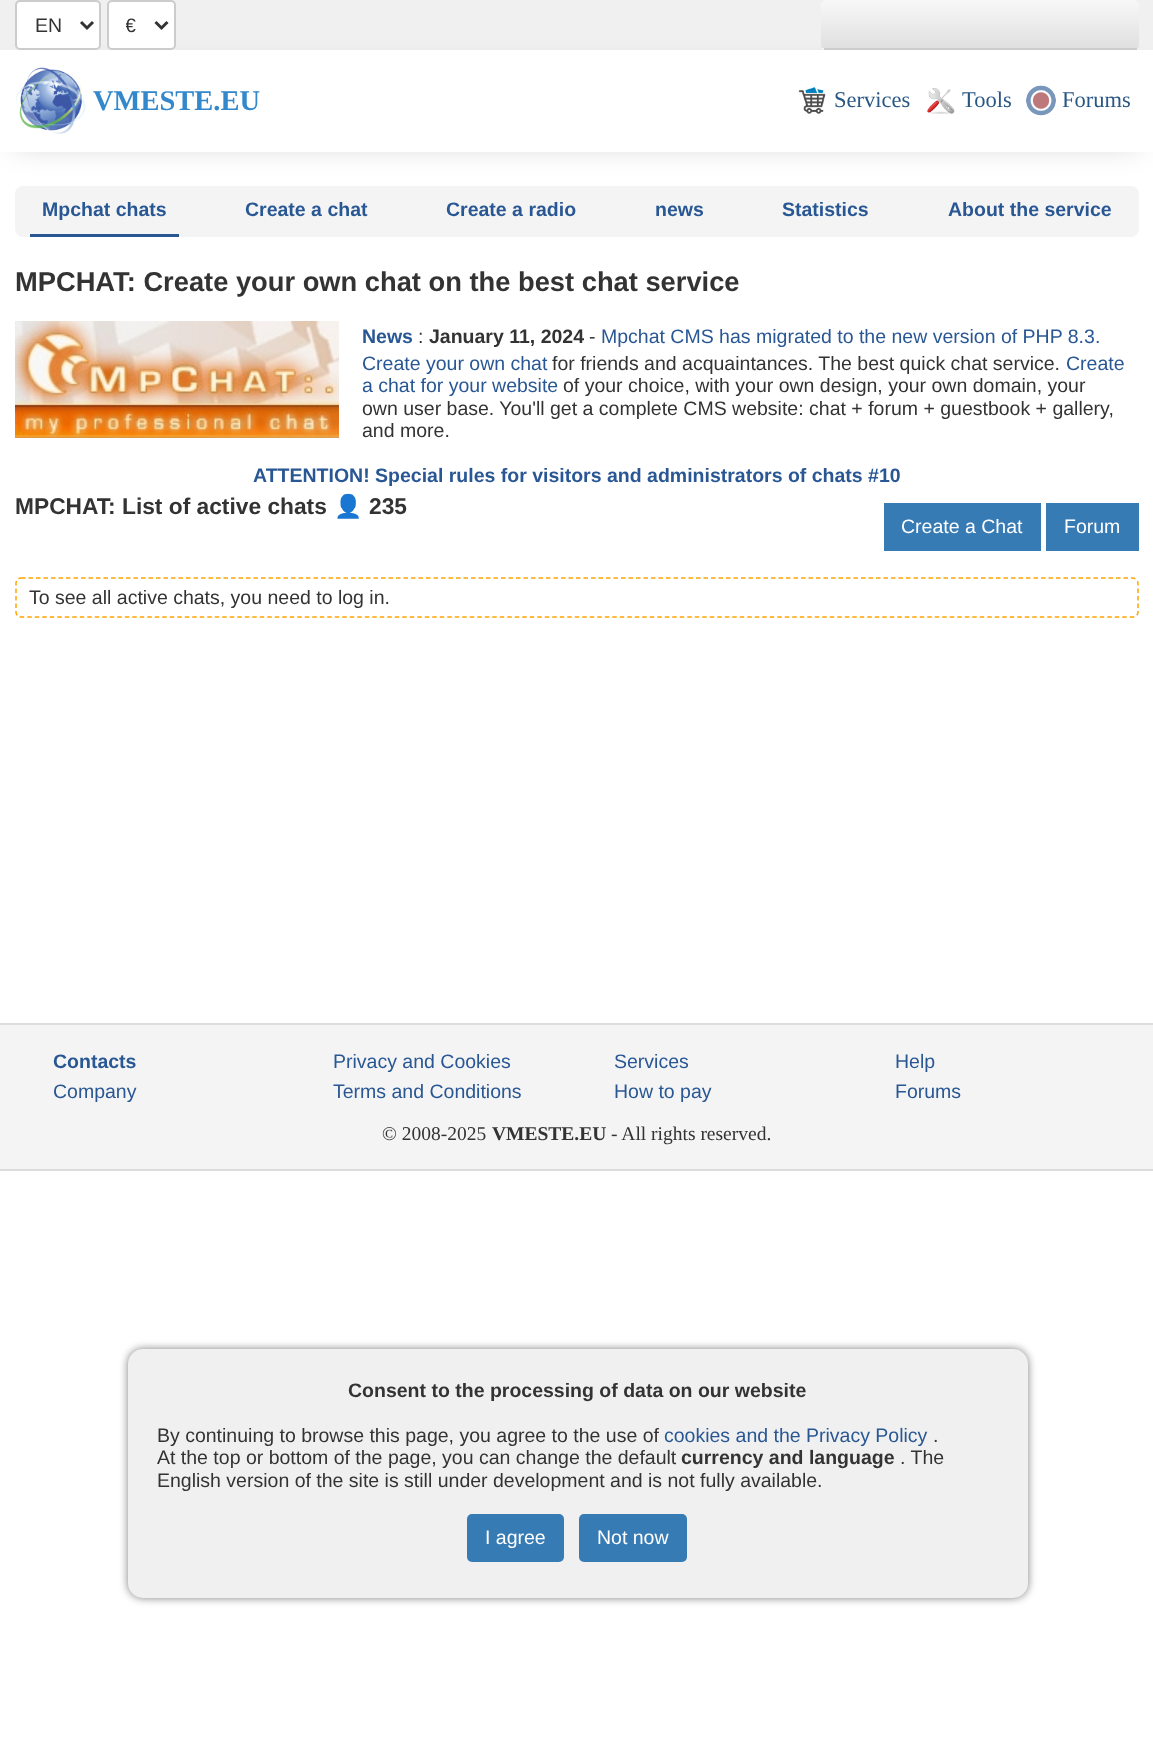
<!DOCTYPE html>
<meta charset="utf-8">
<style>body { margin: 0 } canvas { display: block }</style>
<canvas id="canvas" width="1153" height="1747"></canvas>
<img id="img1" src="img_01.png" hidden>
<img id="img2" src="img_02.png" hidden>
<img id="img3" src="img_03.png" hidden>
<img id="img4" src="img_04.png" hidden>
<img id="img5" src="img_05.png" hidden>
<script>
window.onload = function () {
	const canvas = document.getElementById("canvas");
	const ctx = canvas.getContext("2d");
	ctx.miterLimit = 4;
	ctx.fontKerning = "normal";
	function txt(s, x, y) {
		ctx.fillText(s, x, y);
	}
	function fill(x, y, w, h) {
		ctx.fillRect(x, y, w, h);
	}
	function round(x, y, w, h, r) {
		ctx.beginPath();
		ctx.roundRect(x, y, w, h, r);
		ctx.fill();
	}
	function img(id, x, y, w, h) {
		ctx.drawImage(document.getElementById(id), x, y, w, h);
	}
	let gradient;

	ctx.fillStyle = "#FFFFFF";
	fill(0, 0, 1153, 1747);
	ctx.fillStyle = "#F0F0F0";
	fill(0, 0, 1153, 50);
	ctx.fillStyle = "rgba(0, 0, 0, 0.2)";
	ctx.filter = "blur(15px)";
	ctx.beginPath();
	ctx.rect(15, 72, 1124, 72);
	ctx.fill();
	ctx.filter = "none";
	ctx.fillStyle = "#FFFFFF";
	ctx.beginPath();
	ctx.roundRect(16, 1, 84, 48, 4);
	ctx.fill();
	ctx.strokeStyle = "#CCCCCC";
	ctx.lineWidth = 2;
	ctx.stroke();
	ctx.beginPath();
	ctx.moveTo(81, 22);
	ctx.lineTo(87, 28);
	ctx.lineTo(93, 22);
	ctx.strokeStyle = "#333333";
	ctx.lineWidth = 3;
	ctx.stroke();
	ctx.beginPath();
	ctx.roundRect(108, 1, 67, 48, 4);
	ctx.fill();
	ctx.strokeStyle = "#CCCCCC";
	ctx.lineWidth = 2;
	ctx.stroke();
	ctx.beginPath();
	ctx.moveTo(155.5, 22);
	ctx.lineTo(161.5, 28);
	ctx.lineTo(167.5, 22);
	ctx.strokeStyle = "#333333";
	ctx.lineWidth = 3;
	ctx.stroke();
	ctx.save();
	ctx.beginPath();
	ctx.roundRect(821, 0, 318, 50, 5);
	ctx.clip();
	gradient = ctx.createLinearGradient(980, 0, 980, 48);
	gradient.addColorStop(0, "#F8F8F8");
	gradient.addColorStop(1, "#E0E0E0");
	ctx.fillStyle = gradient;
	ctx.beginPath();
	ctx.roundRect(821, 0, 318, 48, [5, 5, 0, 0]);
	ctx.fill();
	gradient = ctx.createLinearGradient(980, 48, 980, 96);
	gradient.addColorStop(0, "#F8F8F8");
	gradient.addColorStop(1, "#E0E0E0");
	ctx.fillStyle = gradient;
	fill(821, 48, 318, 2);
	ctx.restore();
	ctx.fillStyle = "#CCCCCC";
	fill(824, 48, 313, 2);
	ctx.fillStyle = "#FFFFFF";
	fill(0, 50, 1153, 102);
	img("img1", 16, 67, 70, 67);
	img("img2", 798, 87, 28, 27);
	img("img3", 927, 88, 28, 26);
	img("img4", 1026, 85, 30, 31);
	ctx.fillStyle = "#F4F4F4";
	round(15, 186, 1124, 51, 8);
	ctx.fillStyle = "#295794";
	fill(30, 234, 149, 3);
	img("img5", 15, 321, 324, 117);
	ctx.fillStyle = "#377BB5";
	fill(884, 503, 157, 48);
	fill(1046, 503, 93, 48);
	ctx.beginPath();
	ctx.moveTo(21, 578);
	ctx.lineTo(1132.5, 578);
	ctx.bezierCurveTo(1135.5, 578, 1138, 580.5, 1138, 583.5);
	ctx.lineTo(1138, 612);
	ctx.bezierCurveTo(1138, 615, 1135.5, 617, 1132.5, 617);
	ctx.lineTo(21, 617);
	ctx.bezierCurveTo(18, 617, 16, 615, 16, 612);
	ctx.lineTo(16, 583.5);
	ctx.bezierCurveTo(16, 580.5, 18, 578, 21, 578);
	ctx.closePath();
	ctx.strokeStyle = "#FFA500";
	ctx.lineWidth = 1.5;
	ctx.setLineDash([4.5, 3]);
	ctx.stroke();
	ctx.fillStyle = "#F4F4F4";
	fill(0, 1025, 1153, 144);
	ctx.fillStyle = "#DDDDDD";
	fill(0, 1023, 1153, 2);
	fill(0, 1169, 1153, 2);
	ctx.fillStyle = "rgba(0, 0, 0, 0.5)";
	ctx.filter = "blur(4px)";
	ctx.beginPath();
	ctx.roundRect(128, 1349, 900, 249, 15);
	ctx.fill();
	ctx.filter = "none";
	ctx.fillStyle = "#F0F0F0";
	round(128, 1349, 900, 249, 15);
	ctx.fillStyle = "#377BB5";
	round(467, 1514, 97, 48, 5);
	round(579, 1514, 108, 48, 5);
	ctx.font = "19.5px Liberation Sans";
	ctx.fillStyle = "#333333";
	txt("EN", 35, 32);
	ctx.save();
	ctx.beginPath();
	ctx.rect(126, 12, 12, 26);
	ctx.clip();
	txt("€", 125, 32);
	ctx.restore();
	ctx.font = "bold 28.5px Liberation Serif";
	ctx.fillStyle = "#3388CC";
	txt("VMESTE.EU", 93, 110);
	ctx.font = "22.5px Liberation Serif";
	ctx.fillStyle = "#295784";
	txt("Services", 834, 107);
	txt("Tools", 962, 107);
	txt("Forums", 1062, 107);
	ctx.font = "bold 19.5px Liberation Sans";
	ctx.fillStyle = "#295794";
	txt("Mpchat chats", 42, 216);
	txt("Create a chat", 245, 216);
	txt("Create a radio", 446, 216);
	txt("news", 655, 216);
	txt("Statistics", 782, 216);
	txt("About the service", 948, 216);
	ctx.font = "bold 27.3px Liberation Sans";
	ctx.fillStyle = "#333333";
	txt("MPCHAT: Create your own chat on the best chat service", 15, 291);
	ctx.font = "bold 19.5px Liberation Sans";
	ctx.fillStyle = "#295794";
	txt("News", 362, 343);
	ctx.font = "19.5px Liberation Sans";
	ctx.fillStyle = "#333333";
	txt(":", 418, 343);
	ctx.font = "bold 19.5px Liberation Sans";
	txt("January 11, 2024", 429, 343);
	ctx.font = "19.5px Liberation Sans";
	txt("-", 589, 343);
	ctx.fillStyle = "#295794";
	txt("Mpchat CMS has migrated to the new version of PHP 8.3.", 601, 343);
	txt("Create your own chat", 362, 370);
	ctx.fillStyle = "#333333";
	txt("for friends and acquaintances. The best quick chat service.", 552, 370);
	ctx.fillStyle = "#295794";
	txt("Create", 1066, 370);
	txt("a chat for your website", 362, 392);
	ctx.fillStyle = "#333333";
	txt("of your choice, with your own design, your own domain, your", 563, 392);
	txt("own user base. You'll get a complete CMS website: chat + forum + guestbook + gallery,", 362, 415);
	txt("and more.", 362, 437);
	ctx.font = "bold 19.5px Liberation Sans";
	ctx.fillStyle = "#295794";
	txt("ATTENTION! Special rules for visitors and administrators of chats #10", 253, 482);
	ctx.font = "bold 22.75px Liberation Sans";
	ctx.fillStyle = "#333333";
	txt("MPCHAT: List of active chats", 15, 514);
	ctx.font = "bold 22.75px Noto Color Emoji";
	txt("👤", 334, 514);
	ctx.font = "bold 22.75px Liberation Sans";
	txt("235", 369, 514);
	ctx.font = "19.5px Liberation Sans";
	ctx.fillStyle = "#FFFFFF";
	txt("Create a Chat", 901, 533);
	txt("Forum", 1064, 533);
	ctx.fillStyle = "#333333";
	txt("To see all active chats, you need to log in.", 29, 604);
	ctx.font = "bold 19.5px Liberation Sans";
	ctx.fillStyle = "#295794";
	txt("Contacts", 53, 1068);
	ctx.font = "19.5px Liberation Sans";
	txt("Company", 53, 1098);
	txt("Privacy and Cookies", 333, 1068);
	txt("Terms and Conditions", 333, 1098);
	txt("Services", 614, 1068);
	txt("How to pay", 614, 1098);
	txt("Help", 895, 1068);
	txt("Forums", 895, 1098);
	ctx.font = "19.5px Liberation Serif";
	ctx.fillStyle = "#333333";
	txt("© 2008-2025", 382, 1140);
	ctx.font = "bold 19.5px Liberation Serif";
	txt("VMESTE.EU", 492, 1140);
	ctx.font = "19.5px Liberation Serif";
	txt("- All rights reserved.", 611, 1140);
	ctx.font = "bold 19.5px Liberation Sans";
	txt("Consent to the processing of data on our website", 348, 1397);
	ctx.font = "19.5px Liberation Sans";
	txt("By continuing to browse this page, you agree to the use of", 157, 1442);
	ctx.fillStyle = "#295794";
	txt("cookies and the Privacy Policy", 664, 1442);
	ctx.fillStyle = "#333333";
	txt(".", 933, 1442);
	txt("At the top or bottom of the page, you can change the default", 157, 1464);
	ctx.font = "bold 19.5px Liberation Sans";
	txt("currency and language", 681, 1464);
	ctx.font = "19.5px Liberation Sans";
	txt(". The", 900, 1464);
	txt("English version of the site is still under development and is not fully available.", 157, 1487);
	ctx.fillStyle = "#FFFFFF";
	txt("I agree", 485, 1544);
	txt("Not now", 597, 1544);
};
</script>
